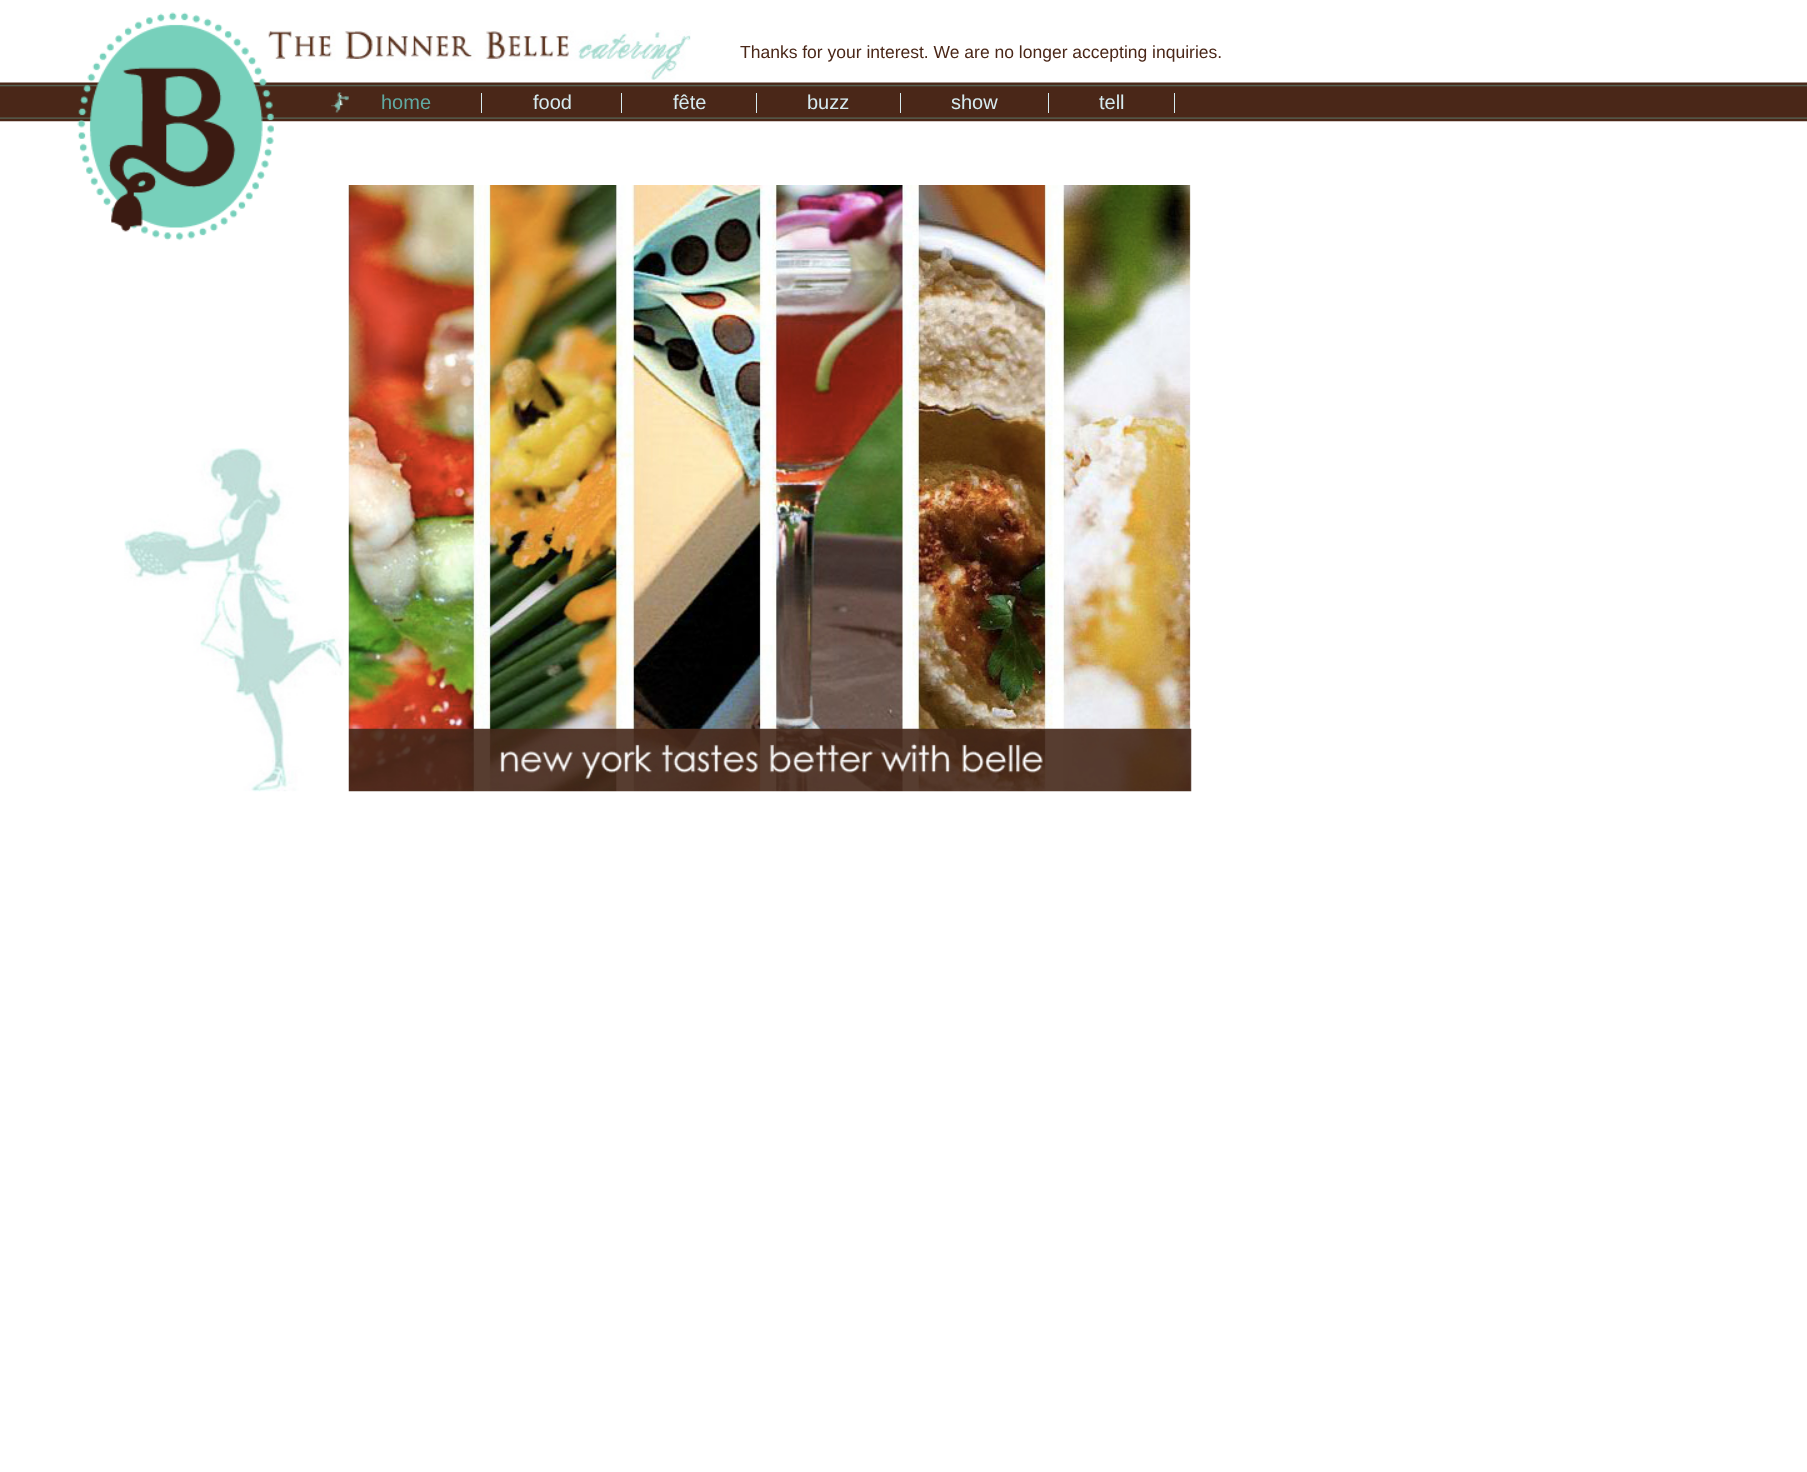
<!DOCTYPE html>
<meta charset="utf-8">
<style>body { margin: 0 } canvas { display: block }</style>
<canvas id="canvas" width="1807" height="1472"></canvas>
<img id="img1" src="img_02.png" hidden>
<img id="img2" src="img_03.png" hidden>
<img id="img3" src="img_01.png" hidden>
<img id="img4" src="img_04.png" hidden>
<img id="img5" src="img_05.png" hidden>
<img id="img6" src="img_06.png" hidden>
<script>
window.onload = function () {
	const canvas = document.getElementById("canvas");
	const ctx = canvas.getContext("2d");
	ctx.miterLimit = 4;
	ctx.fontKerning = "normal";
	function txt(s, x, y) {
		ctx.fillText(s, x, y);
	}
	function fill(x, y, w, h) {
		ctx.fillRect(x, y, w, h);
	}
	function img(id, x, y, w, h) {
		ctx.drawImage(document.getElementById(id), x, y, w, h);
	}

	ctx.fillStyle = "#FFFFFF";
	fill(0, 0, 1807, 1472);
	img("img1", 268, 30, 423, 50);
	img("img2", 0, 82, 1807, 40);
	img("img3", 77, 12, 197, 229);
	img("img4", 331, 92, 18, 21);
	ctx.fillStyle = "#D6EBF0";
	fill(481, 93, 1, 20);
	fill(621, 93, 1, 20);
	fill(756, 93, 1, 20);
	fill(900, 93, 1, 20);
	fill(1048, 93, 1, 20);
	fill(1174, 93, 1, 20);
	img("img5", 124, 448, 220, 344);
	img("img6", 348, 185, 844, 607);
	ctx.font = "17.5px Liberation Sans";
	ctx.fillStyle = "#4A2718";
	txt("Thanks for your interest. We are no longer accepting inquiries.", 740, 58);
	ctx.font = "20px Liberation Sans";
	ctx.fillStyle = "#60A9A2";
	txt("home", 381, 109);
	ctx.fillStyle = "#D6EBF0";
	txt("food", 533, 109);
	txt("fête", 673, 109);
	txt("buzz", 807, 109);
	txt("show", 951, 109);
	txt("tell", 1099, 109);
};
</script>
